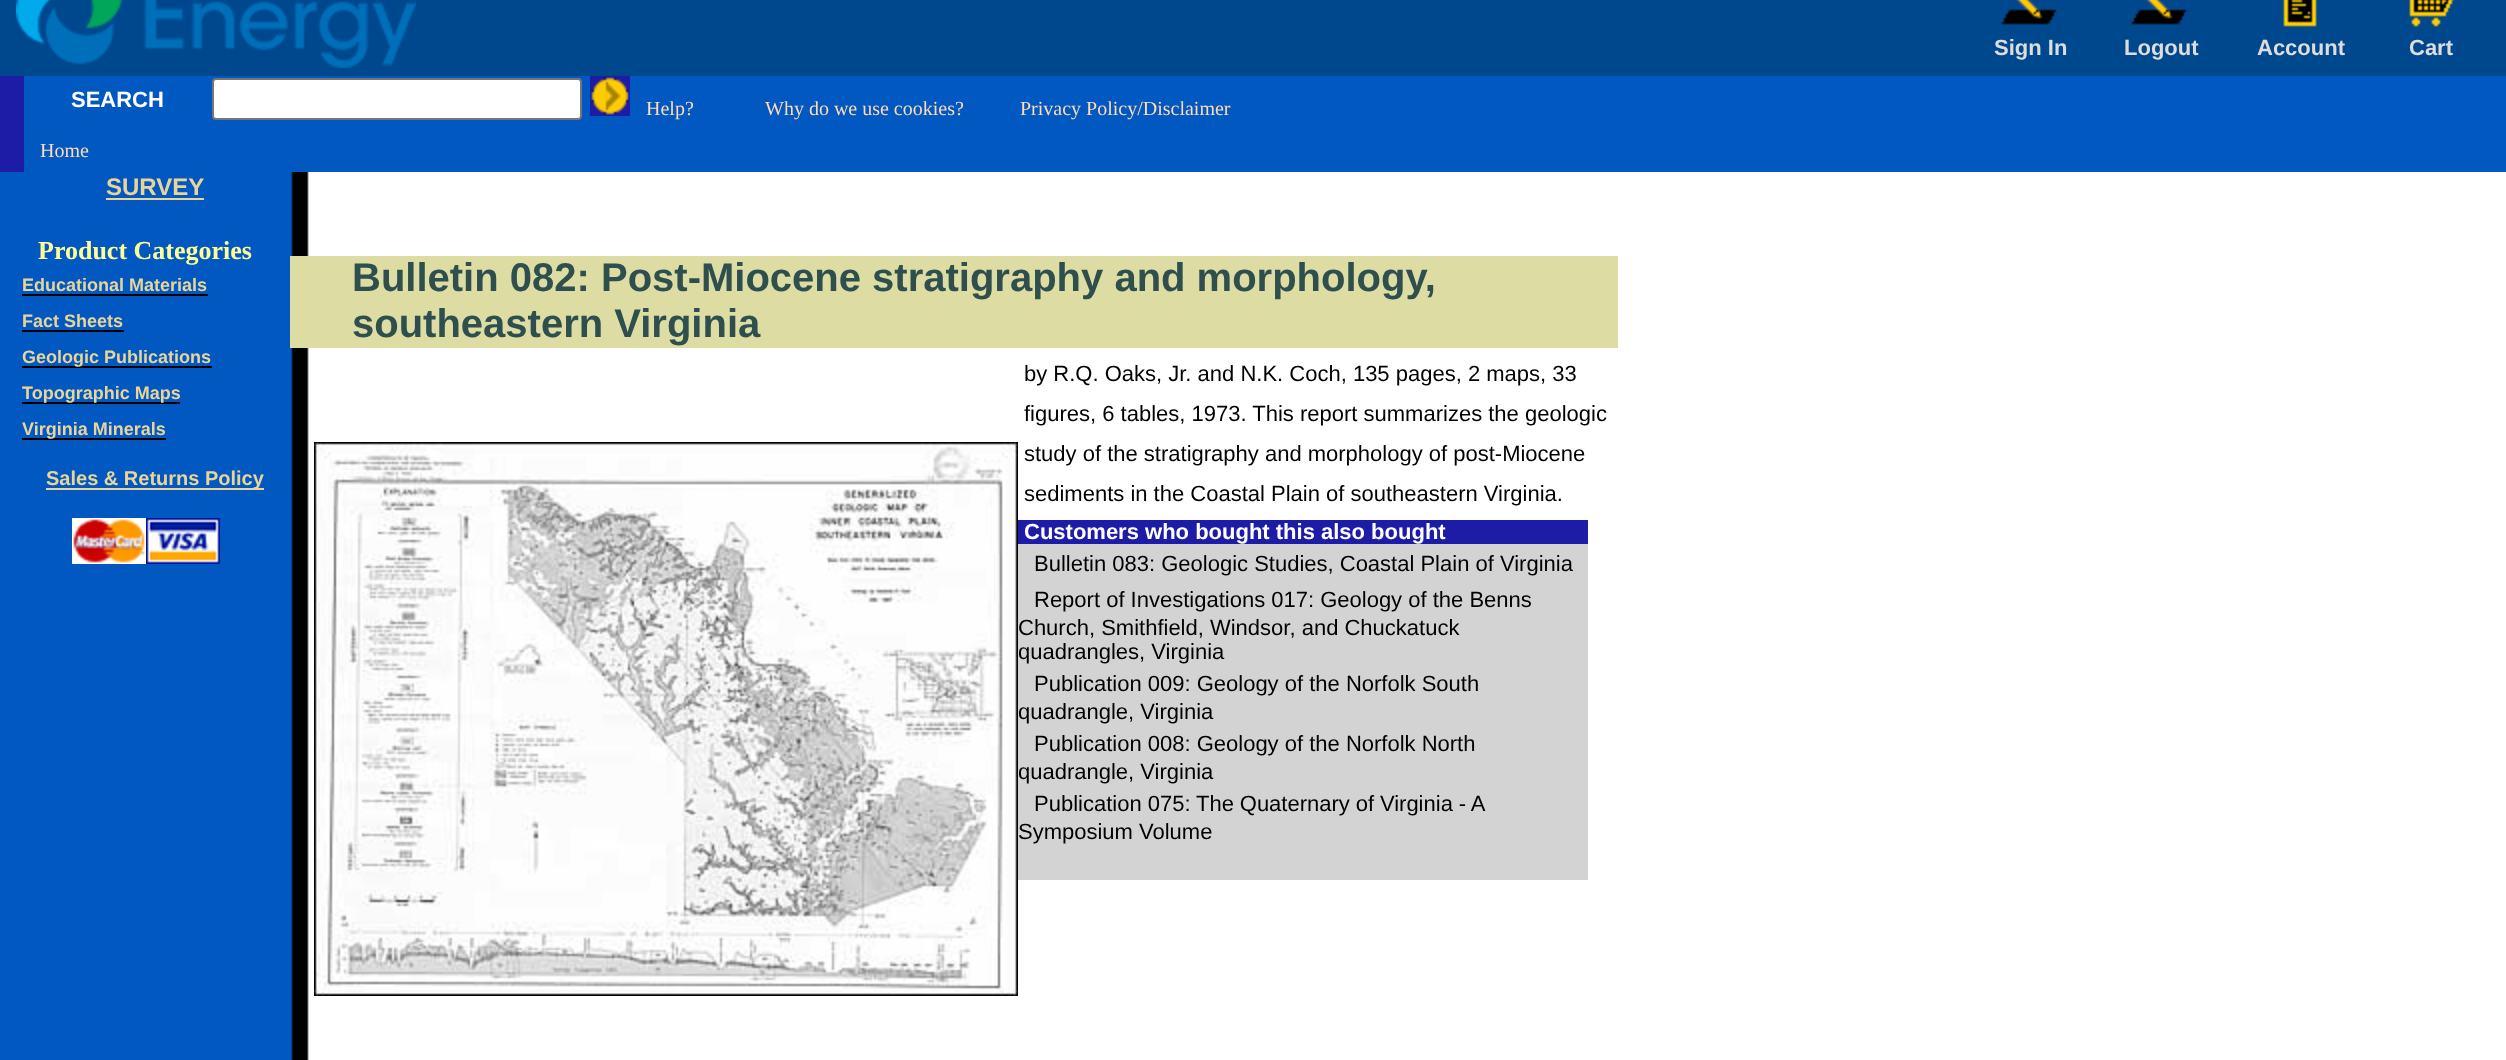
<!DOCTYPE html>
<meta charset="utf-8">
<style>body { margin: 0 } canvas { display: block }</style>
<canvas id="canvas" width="2506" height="1060"></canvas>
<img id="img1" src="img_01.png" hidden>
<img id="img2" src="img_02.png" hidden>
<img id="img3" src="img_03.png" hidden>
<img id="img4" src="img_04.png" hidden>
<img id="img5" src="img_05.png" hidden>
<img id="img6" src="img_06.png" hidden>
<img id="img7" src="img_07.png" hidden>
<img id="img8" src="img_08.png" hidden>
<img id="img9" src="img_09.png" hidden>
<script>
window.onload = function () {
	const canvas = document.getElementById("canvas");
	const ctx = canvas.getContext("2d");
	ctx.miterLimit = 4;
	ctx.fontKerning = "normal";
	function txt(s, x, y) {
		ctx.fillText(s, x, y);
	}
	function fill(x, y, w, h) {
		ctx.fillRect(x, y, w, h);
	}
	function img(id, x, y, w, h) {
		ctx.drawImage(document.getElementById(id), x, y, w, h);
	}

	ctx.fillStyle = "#FFFFFF";
	fill(0, 0, 2506, 1060);
	img("img1", 0, 172, 309, 888);
	ctx.fillStyle = "#00488E";
	fill(0, 0, 2506, 76);
	img("img2", 16, 0, 400, 68);
	img("img3", 2001, 0, 56, 25);
	img("img3", 2131, 0, 56, 25);
	img("img4", 2283, 0, 34, 27);
	img("img5", 2409, 0, 46, 27);
	ctx.fillStyle = "#0058C0";
	fill(24, 76, 2482, 96);
	ctx.fillStyle = "#1C1CA6";
	fill(0, 76, 24, 96);
	ctx.fillStyle = "#FFFFFF";
	ctx.beginPath();
	ctx.roundRect(213, 79, 368, 40, 3);
	ctx.fill();
	ctx.strokeStyle = "#767676";
	ctx.lineWidth = 2;
	ctx.stroke();
	img("img6", 590, 76, 40, 40);
	ctx.fillStyle = "#EAD599";
	fill(106, 198, 98, 2);
	ctx.fillStyle = "#000000";
	fill(22, 294, 186, 2);
	fill(22, 330, 102, 2);
	fill(22, 366, 190, 2);
	fill(22, 402, 158, 2);
	fill(22, 438, 144, 2);
	ctx.fillStyle = "#EAD599";
	fill(46, 488, 218, 2);
	img("img7", 72, 518, 74, 46);
	img("img8", 146, 518, 74, 46);
	ctx.fillStyle = "#DDDCA3";
	fill(290, 256, 1328, 92);
	img("img9", 314, 442, 704, 554);
	ctx.fillStyle = "#1C1CA6";
	fill(1018, 520, 570, 24);
	ctx.fillStyle = "#D3D3D3";
	fill(1018, 544, 570, 336);
	ctx.font = "bold 22px Liberation Sans";
	ctx.fillStyle = "#DDDDDD";
	txt("Sign In", 1994, 55);
	txt("Logout", 2124, 55);
	txt("Account", 2257, 55);
	txt("Cart", 2409, 55);
	ctx.fillStyle = "#FFFFFF";
	txt("SEARCH", 71, 107);
	ctx.font = "20px Liberation Serif";
	ctx.fillStyle = "#FFDBB8";
	txt("Help?", 646, 115);
	txt("Why do we use cookies?", 765, 115);
	txt("Privacy Policy/Disclaimer", 1020, 115);
	txt("Home", 40, 157);
	ctx.font = "bold 24px Liberation Sans";
	ctx.fillStyle = "#EAD599";
	txt("SURVEY", 106, 195);
	ctx.font = "bold 26px Liberation Serif";
	ctx.fillStyle = "#FFFF99";
	txt("Product Categories", 38, 259);
	ctx.font = "bold 18px Liberation Sans";
	ctx.fillStyle = "#EAD599";
	txt("Educational Materials", 22, 291);
	txt("Fact Sheets", 22, 327);
	txt("Geologic Publications", 22, 363);
	txt("Topographic Maps", 22, 399);
	txt("Virginia Minerals", 22, 435);
	ctx.font = "bold 20px Liberation Sans";
	txt("Sales & Returns Policy", 46, 485);
	ctx.font = "bold 40px Liberation Sans";
	ctx.fillStyle = "#2F4F4F";
	txt("Bulletin 082: Post-Miocene stratigraphy and morphology,", 352, 291);
	txt("southeastern Virginia", 352, 337);
	ctx.font = "22px Liberation Sans";
	ctx.fillStyle = "#000000";
	txt("by R.Q. Oaks, Jr. and N.K. Coch, 135 pages, 2 maps, 33", 1024, 381);
	txt("figures, 6 tables, 1973. This report summarizes the geologic", 1024, 421);
	txt("study of the stratigraphy and morphology of post-Miocene", 1024, 461);
	txt("sediments in the Coastal Plain of southeastern Virginia.", 1024, 501);
	ctx.font = "bold 22px Liberation Sans";
	ctx.fillStyle = "#FFFFFF";
	txt("Customers who bought this also bought", 1024, 539);
	ctx.font = "22px Liberation Sans";
	ctx.fillStyle = "#000000";
	txt("Bulletin 083: Geologic Studies, Coastal Plain of Virginia", 1034, 571);
	txt("Report of Investigations 017: Geology of the Benns", 1034, 607);
	txt("Church, Smithfield, Windsor, and Chuckatuck", 1018, 635);
	txt("quadrangles, Virginia", 1018, 659);
	txt("Publication 009: Geology of the Norfolk South", 1034, 691);
	txt("quadrangle, Virginia", 1018, 719);
	txt("Publication 008: Geology of the Norfolk North", 1034, 751);
	txt("quadrangle, Virginia", 1018, 779);
	txt("Publication 075:", 1034, 811);
	ctx.wordSpacing = "-0.25px";
	txt("The Quaternary of Virginia - A", 1196, 811);
	ctx.wordSpacing = "0px";
	txt("Symposium Volume", 1018, 839);
};
</script>
